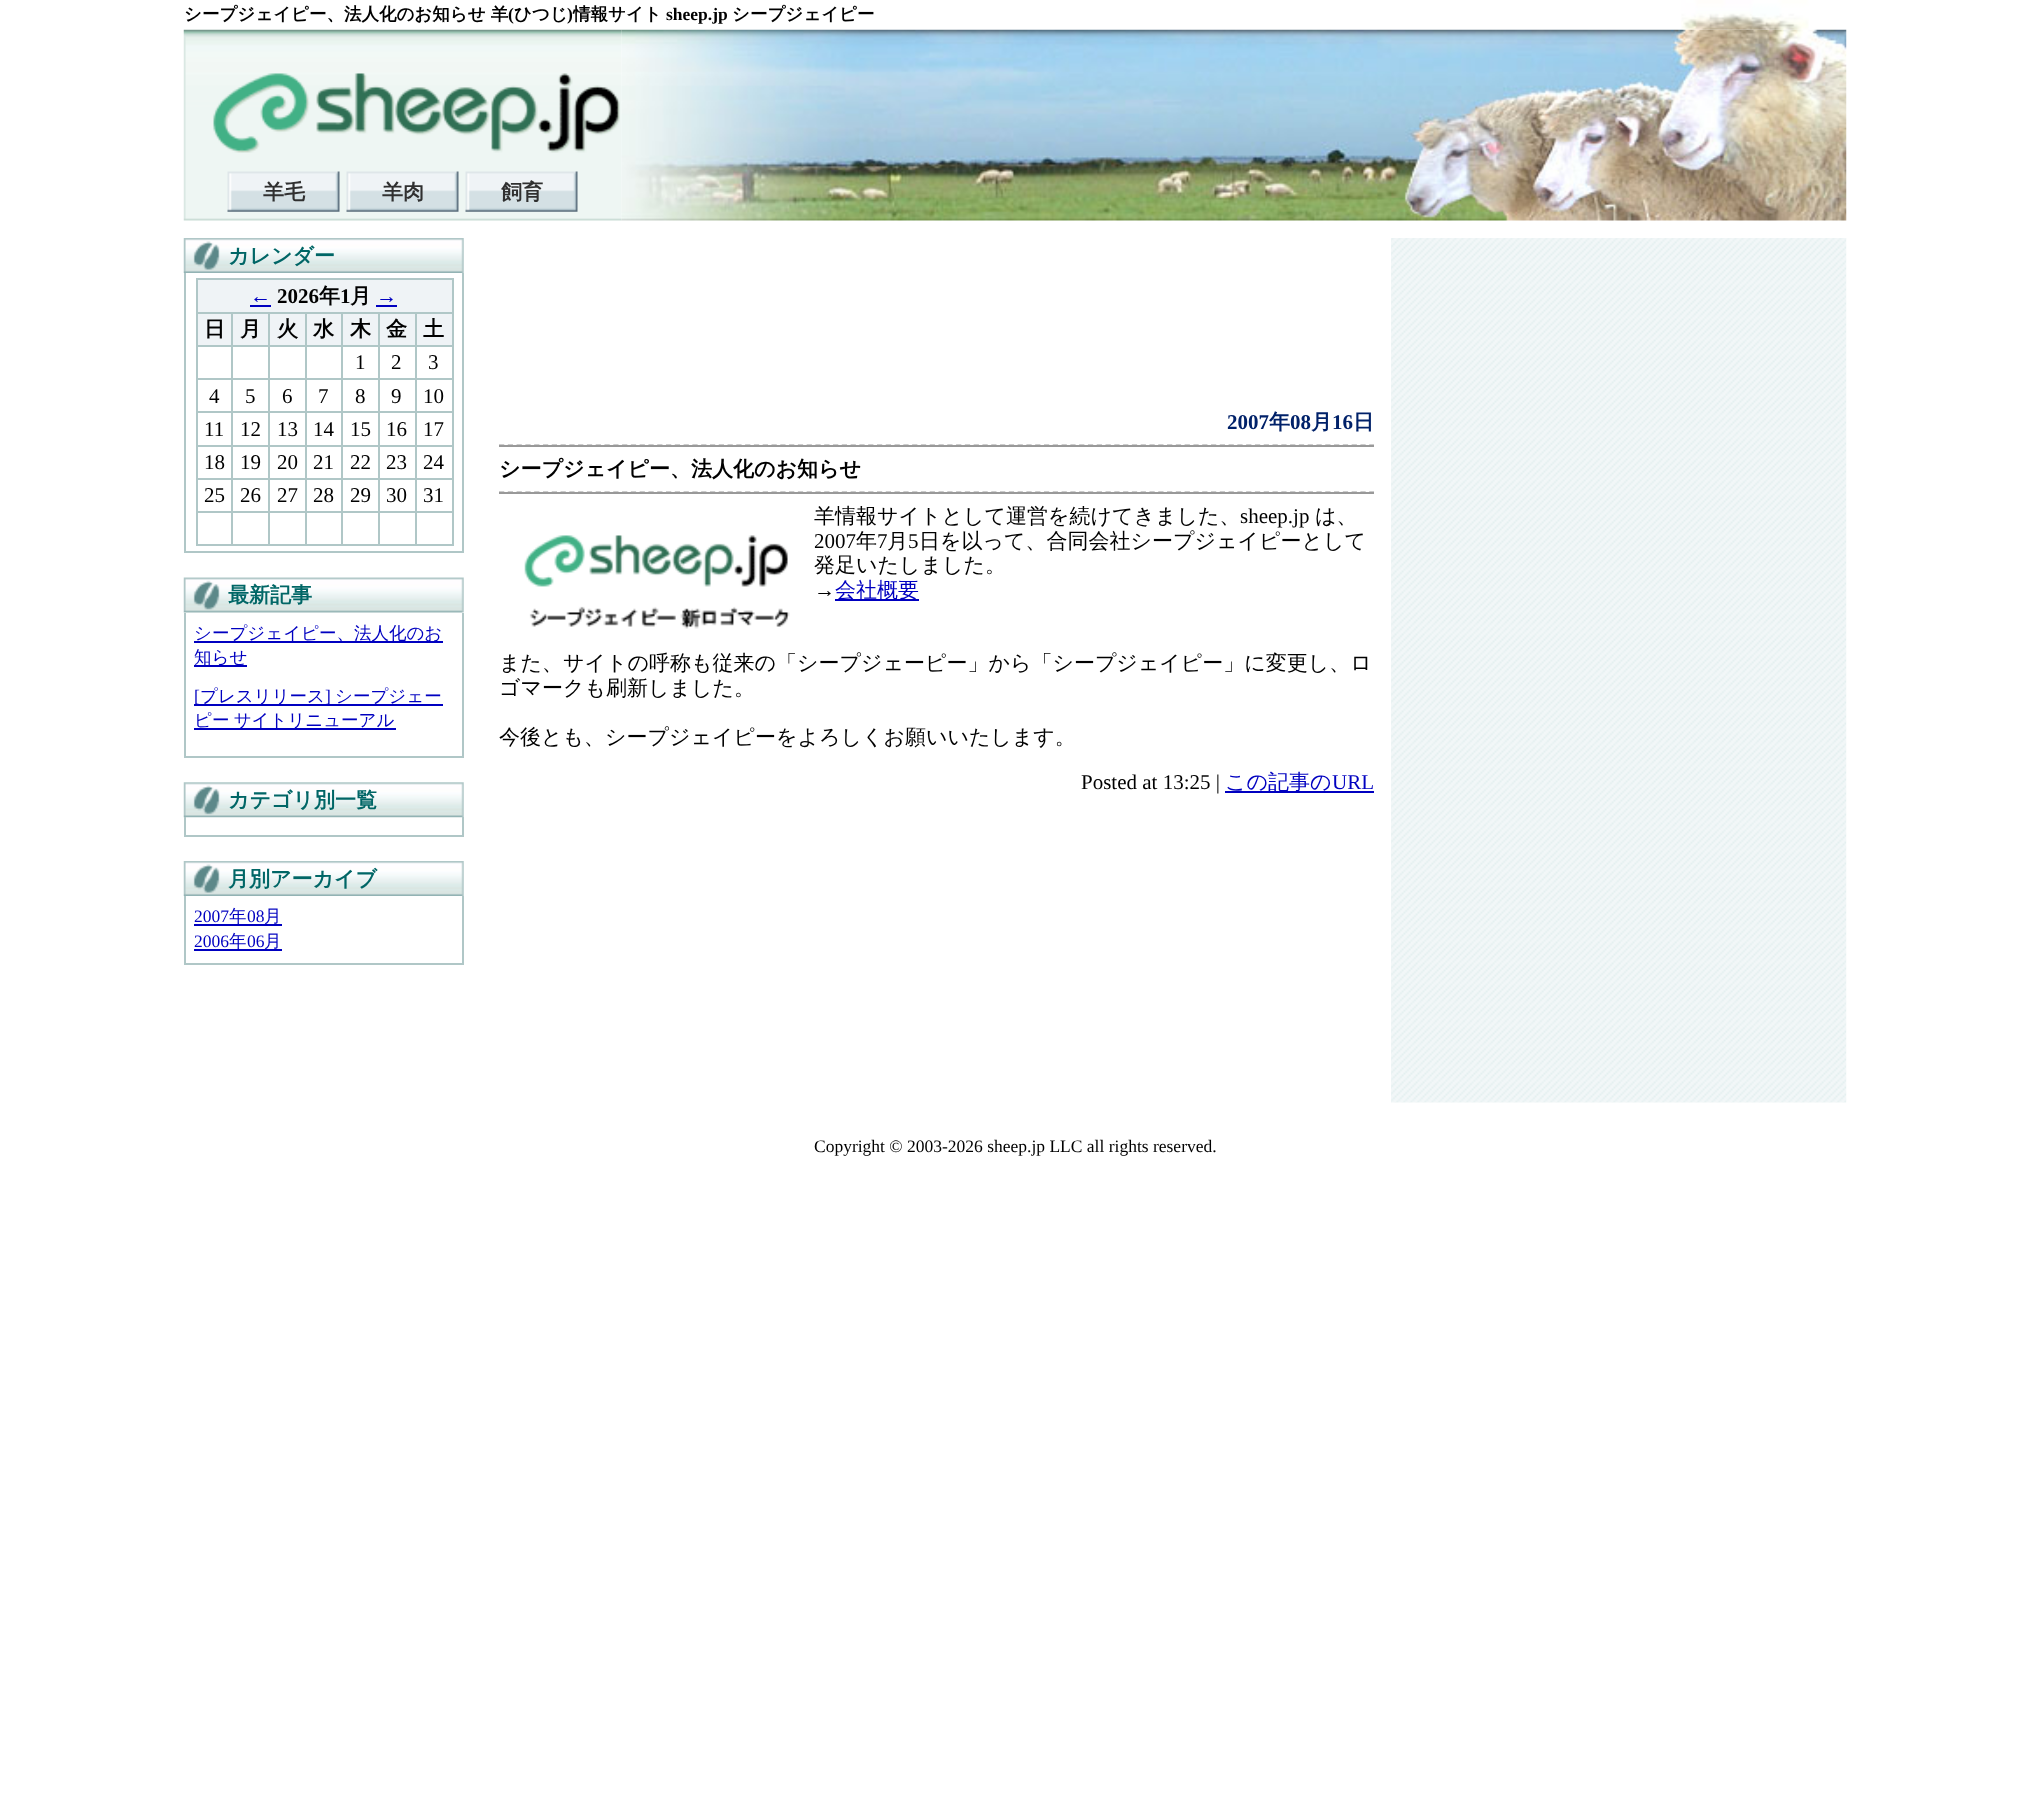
<!DOCTYPE html>
<meta charset="utf-8">
<style>body { margin: 0 } canvas { display: block }</style>
<canvas id="canvas" width="2029" height="1815"></canvas>
<img id="img1" src="img_01.png" hidden>
<img id="img2" src="img_02.png" hidden>
<img id="img3" src="img_03.png" hidden>
<img id="img4" src="img_04.png" hidden>
<img id="img5" src="img_05.png" hidden>
<img id="img6" src="img_06.png" hidden>
<img id="img7" src="img_07.png" hidden>
<img id="img8" src="img_08.png" hidden>
<img id="img9" src="img_09.png" hidden>
<script>
window.onload = function () {
	const canvas = document.getElementById("canvas");
	const ctx = canvas.getContext("2d");
	ctx.miterLimit = 4;
	ctx.fontKerning = "normal";
	function txt(s, x, y) {
		ctx.fillText(s, x, y);
	}
	function fill(x, y, w, h) {
		ctx.fillRect(x, y, w, h);
	}
	function img(id, x, y, w, h) {
		ctx.drawImage(document.getElementById(id), x, y, w, h);
	}

	ctx.fillStyle = "#FFFFFF";
	fill(0, 0, 2029, 1815);
	img("img1", 1681, 0, 128, 30);
	img("img2", 183, 29, 439, 192);
	img("img3", 227, 171, 113, 41);
	img("img3", 346, 171, 113, 41);
	img("img3", 465, 171, 113, 41);
	img("img4", 621, 29, 1226, 192);
	img("img5", 183, 238, 281, 35);
	ctx.fillStyle = "#B0C7C7";
	fill(462, 273, 2, 280);
	fill(184, 551, 280, 2);
	fill(184, 273, 2, 280);
	fill(196, 278, 257, 2);
	fill(452, 278, 2, 268);
	fill(196, 544, 257, 2);
	fill(196, 278, 2, 268);
	ctx.fillStyle = "#EFF3F6";
	fill(198, 280, 254, 32);
	ctx.fillStyle = "#0000C0";
	fill(250, 305, 21, 2);
	fill(376, 305, 21, 2);
	ctx.fillStyle = "#EFF3F6";
	fill(198, 314, 33, 31);
	ctx.fillStyle = "#B0C7C7";
	fill(415, 312, 38, 2);
	fill(415, 345, 38, 2);
	fill(415, 378, 38, 2);
	fill(415, 411, 38, 2);
	fill(415, 445, 38, 2);
	fill(415, 478, 38, 2);
	fill(415, 511, 38, 2);
	fill(415, 511, 2, 35);
	fill(378, 511, 39, 2);
	fill(415, 478, 2, 35);
	fill(378, 478, 39, 2);
	fill(415, 445, 2, 35);
	fill(378, 445, 39, 2);
	fill(415, 411, 2, 35);
	fill(378, 411, 39, 2);
	fill(415, 378, 2, 35);
	fill(378, 378, 39, 2);
	fill(415, 345, 2, 35);
	fill(378, 345, 39, 2);
	fill(415, 312, 2, 35);
	fill(378, 312, 39, 2);
	fill(378, 511, 2, 35);
	fill(341, 511, 39, 2);
	fill(378, 478, 2, 35);
	fill(341, 478, 39, 2);
	fill(378, 445, 2, 35);
	fill(341, 445, 39, 2);
	fill(378, 411, 2, 35);
	fill(341, 411, 39, 2);
	fill(378, 378, 2, 35);
	fill(341, 378, 39, 2);
	fill(378, 345, 2, 35);
	fill(341, 345, 39, 2);
	fill(378, 312, 2, 35);
	fill(341, 312, 39, 2);
	fill(341, 511, 2, 35);
	fill(305, 511, 38, 2);
	fill(341, 478, 2, 35);
	fill(305, 478, 38, 2);
	fill(341, 445, 2, 35);
	fill(305, 445, 38, 2);
	fill(341, 411, 2, 35);
	fill(305, 411, 38, 2);
	fill(341, 378, 2, 35);
	fill(305, 378, 38, 2);
	fill(341, 345, 2, 35);
	fill(305, 345, 38, 2);
	fill(341, 312, 2, 35);
	fill(305, 312, 38, 2);
	fill(305, 511, 2, 35);
	fill(268, 511, 38, 2);
	fill(305, 478, 2, 35);
	fill(268, 478, 38, 2);
	fill(305, 445, 2, 35);
	fill(268, 445, 38, 2);
	fill(305, 411, 2, 35);
	fill(268, 411, 38, 2);
	fill(305, 378, 2, 35);
	fill(268, 378, 38, 2);
	fill(305, 345, 2, 35);
	fill(268, 345, 38, 2);
	fill(305, 312, 2, 35);
	fill(268, 312, 38, 2);
	fill(268, 511, 2, 35);
	fill(231, 511, 39, 2);
	fill(268, 478, 2, 35);
	fill(231, 478, 39, 2);
	fill(268, 445, 2, 35);
	fill(231, 445, 39, 2);
	fill(268, 411, 2, 35);
	fill(231, 411, 39, 2);
	fill(268, 378, 2, 35);
	fill(231, 378, 39, 2);
	fill(268, 345, 2, 35);
	fill(231, 345, 39, 2);
	fill(268, 312, 2, 35);
	fill(231, 312, 39, 2);
	fill(231, 511, 2, 35);
	fill(196, 511, 37, 2);
	fill(231, 478, 2, 35);
	fill(196, 478, 37, 2);
	fill(231, 445, 2, 35);
	fill(196, 445, 37, 2);
	fill(231, 411, 2, 35);
	fill(196, 411, 37, 2);
	fill(231, 378, 2, 35);
	fill(196, 378, 37, 2);
	fill(231, 345, 2, 35);
	fill(196, 345, 37, 2);
	fill(231, 312, 2, 35);
	fill(196, 312, 37, 2);
	ctx.fillStyle = "#EFF3F6";
	fill(233, 314, 35, 31);
	fill(270, 314, 35, 31);
	fill(307, 314, 34, 31);
	fill(343, 314, 35, 31);
	fill(380, 314, 35, 31);
	fill(417, 314, 35, 31);
	img("img6", 183, 577, 281, 36);
	ctx.fillStyle = "#B0C7C7";
	fill(462, 613, 2, 145);
	fill(184, 756, 280, 2);
	fill(184, 613, 2, 145);
	ctx.fillStyle = "#0000C0";
	fill(194, 641, 249, 2);
	fill(194, 665, 53, 2);
	fill(194, 704, 249, 2);
	fill(194, 728, 202, 2);
	img("img7", 183, 782, 281, 36);
	ctx.fillStyle = "#B0C7C7";
	fill(462, 817, 2, 20);
	fill(184, 835, 280, 2);
	fill(184, 817, 2, 20);
	img("img5", 183, 861, 281, 35);
	fill(462, 896, 2, 68);
	fill(184, 963, 280, 2);
	fill(184, 896, 2, 68);
	ctx.fillStyle = "#0000C0";
	fill(194, 924, 88, 2);
	fill(194, 949, 88, 2);
	img("img8", 1391, 238, 456, 865);
	ctx.fillStyle = "#999999";
	fill(499, 445, 875, 2);
	ctx.beginPath();
	ctx.moveTo(499, 445.5);
	ctx.lineTo(1374, 445.5);
	ctx.strokeStyle = "#999999";
	ctx.lineWidth = 1.8;
	ctx.setLineDash([5.25, 3.54]);
	ctx.stroke();
	fill(499, 492, 875, 2);
	ctx.beginPath();
	ctx.moveTo(499, 492.5);
	ctx.lineTo(1374, 492.5);
	ctx.stroke();
	img("img9", 524, 535, 266, 94);
	ctx.fillStyle = "#0000C0";
	fill(835, 599, 84, 2);
	fill(1225, 791, 149, 2);
	ctx.font = "bold 17.5px WenQuanYi Zen Hei";
	ctx.fillStyle = "#000000";
	txt("シープジェイピー、法人化のお知らせ 羊", 184, 20);
	ctx.font = "bold 17.5px Liberation Serif";
	txt("(", 508, 20);
	ctx.font = "bold 17.5px WenQuanYi Zen Hei";
	txt("ひつじ", 514, 20);
	ctx.font = "bold 17.5px Liberation Serif";
	txt(")", 567, 20);
	ctx.font = "bold 17.5px WenQuanYi Zen Hei";
	txt("情報サイト", 573, 20);
	ctx.font = "bold 17.5px Liberation Serif";
	txt("sheep.jp", 666, 20);
	ctx.font = "bold 17.5px WenQuanYi Zen Hei";
	txt("シープジェイピー", 732, 20);
	ctx.font = "bold 21px WenQuanYi Zen Hei";
	ctx.fillStyle = "#303030";
	txt("羊毛", 263, 199);
	txt("羊肉", 382, 199);
	txt("飼育", 501, 199);
	ctx.fillStyle = "#006666";
	txt("カレンダー", 228, 263);
	ctx.font = "bold 21px Liberation Serif";
	ctx.fillStyle = "#0000C0";
	txt("←", 250, 303);
	ctx.fillStyle = "#000000";
	txt("2026", 277, 303);
	ctx.font = "bold 21px WenQuanYi Zen Hei";
	txt("年", 319, 303);
	ctx.font = "bold 21px Liberation Serif";
	txt("1", 340, 303);
	ctx.font = "bold 21px WenQuanYi Zen Hei";
	txt("月", 350, 303);
	ctx.font = "bold 21px Liberation Serif";
	ctx.fillStyle = "#0000C0";
	txt("→", 376, 303);
	ctx.font = "bold 21px WenQuanYi Zen Hei";
	ctx.fillStyle = "#000000";
	txt("日", 204, 336);
	txt("月", 240, 336);
	txt("火", 277, 336);
	txt("水", 313, 336);
	txt("木", 350, 336);
	txt("金", 386, 336);
	txt("土", 423, 336);
	ctx.font = "21px Liberation Serif";
	txt("1", 355, 369);
	txt("2", 391, 369);
	txt("3", 428, 369);
	txt("4", 209, 403);
	txt("5", 245, 403);
	txt("6", 282, 403);
	txt("7", 318, 403);
	txt("8", 355, 403);
	txt("9", 391, 403);
	txt("10", 423, 403);
	txt("11", 204, 436);
	txt("12", 240, 436);
	txt("13", 277, 436);
	txt("14", 313, 436);
	txt("15", 350, 436);
	txt("16", 386, 436);
	txt("17", 423, 436);
	txt("18", 204, 469);
	txt("19", 240, 469);
	txt("20", 277, 469);
	txt("21", 313, 469);
	txt("22", 350, 469);
	txt("23", 386, 469);
	txt("24", 423, 469);
	txt("25", 204, 502);
	txt("26", 240, 502);
	txt("27", 277, 502);
	txt("28", 313, 502);
	txt("29", 350, 502);
	txt("30", 386, 502);
	txt("31", 423, 502);
	ctx.font = "bold 21px WenQuanYi Zen Hei";
	ctx.fillStyle = "#006666";
	txt("最新記事", 228, 602);
	ctx.font = "500 17.5px WenQuanYi Zen Hei";
	ctx.fillStyle = "#0000C0";
	txt("シープジェイピー、法人化のお", 194, 639);
	txt("知らせ", 194, 663);
	ctx.font = "17.5px Liberation Serif";
	txt("[", 194, 702);
	ctx.font = "500 17.5px WenQuanYi Zen Hei";
	txt("プレスリリース", 200, 702);
	ctx.font = "17.5px Liberation Serif";
	txt("]", 325, 702);
	ctx.font = "500 17.5px WenQuanYi Zen Hei";
	txt("シープジェー", 335, 702);
	ctx.wordSpacing = "-1px";
	txt("ピー サイトリニューアル", 194, 726);
	ctx.wordSpacing = "0px";
	ctx.font = "bold 21px WenQuanYi Zen Hei";
	ctx.fillStyle = "#006666";
	txt("カテゴリ別一覧", 228, 807);
	txt("月別アーカイブ", 228, 886);
	ctx.font = "17.5px Liberation Serif";
	ctx.fillStyle = "#0000C0";
	txt("2007", 194, 922);
	ctx.font = "500 17.5px WenQuanYi Zen Hei";
	txt("年", 229, 922);
	ctx.font = "17.5px Liberation Serif";
	txt("08", 247, 922);
	ctx.font = "500 17.5px WenQuanYi Zen Hei";
	txt("月", 264, 922);
	ctx.font = "17.5px Liberation Serif";
	txt("2006", 194, 947);
	ctx.font = "500 17.5px WenQuanYi Zen Hei";
	txt("年", 229, 947);
	ctx.font = "17.5px Liberation Serif";
	txt("06", 247, 947);
	ctx.font = "500 17.5px WenQuanYi Zen Hei";
	txt("月", 264, 947);
	ctx.font = "bold 21px Liberation Serif";
	ctx.fillStyle = "#002169";
	txt("2007", 1227, 429);
	ctx.font = "bold 21px WenQuanYi Zen Hei";
	txt("年", 1269, 429);
	ctx.font = "bold 21px Liberation Serif";
	txt("08", 1290, 429);
	ctx.font = "bold 21px WenQuanYi Zen Hei";
	txt("月", 1311, 429);
	ctx.font = "bold 21px Liberation Serif";
	txt("16", 1332, 429);
	ctx.font = "bold 21px WenQuanYi Zen Hei";
	txt("日", 1353, 429);
	ctx.fillStyle = "#000000";
	txt("シープジェイピー、法人化のお知らせ", 499, 476);
	ctx.font = "500 21px WenQuanYi Zen Hei";
	txt("羊情報サイトとして運営を続けてきました、", 814, 523);
	ctx.font = "21px Liberation Serif";
	txt("sheep.jp", 1240, 523);
	ctx.font = "500 21px WenQuanYi Zen Hei";
	txt("は、", 1315, 523);
	ctx.font = "21px Liberation Serif";
	txt("2007", 814, 548);
	ctx.font = "500 21px WenQuanYi Zen Hei";
	txt("年", 856, 548);
	ctx.font = "21px Liberation Serif";
	txt("7", 877, 548);
	ctx.font = "500 21px WenQuanYi Zen Hei";
	txt("月", 887, 548);
	ctx.font = "21px Liberation Serif";
	txt("5", 908, 548);
	ctx.font = "500 21px WenQuanYi Zen Hei";
	txt("日を以って、合同会社シープジェイピーとして", 919, 548);
	txt("発足いたしました。", 814, 572);
	ctx.font = "21px Liberation Serif";
	txt("→", 814, 597);
	ctx.font = "500 21px WenQuanYi Zen Hei";
	ctx.fillStyle = "#0000C0";
	txt("会社概要", 835, 597);
	ctx.fillStyle = "#000000";
	txt("また、サイトの呼称も従来の「シープジェーピー」から「シープジェイピー」に変更し、ロ", 499, 670);
	txt("ゴマークも刷新しました。", 499, 695);
	txt("今後とも、シープジェイピーをよろしくお願いいたします。", 499, 744);
	ctx.font = "21px Liberation Serif";
	txt("Posted at 13:25 |", 1081, 789);
	ctx.font = "500 21px WenQuanYi Zen Hei";
	ctx.fillStyle = "#0000C0";
	txt("この記事の", 1225, 789);
	ctx.font = "21px Liberation Serif";
	txt("URL", 1332, 789);
	ctx.font = "17.5px Liberation Serif";
	ctx.fillStyle = "#000000";
	txt("Copyright © 2003-2026 sheep.jp LLC all rights reserved.", 814, 1152);
};
</script>
